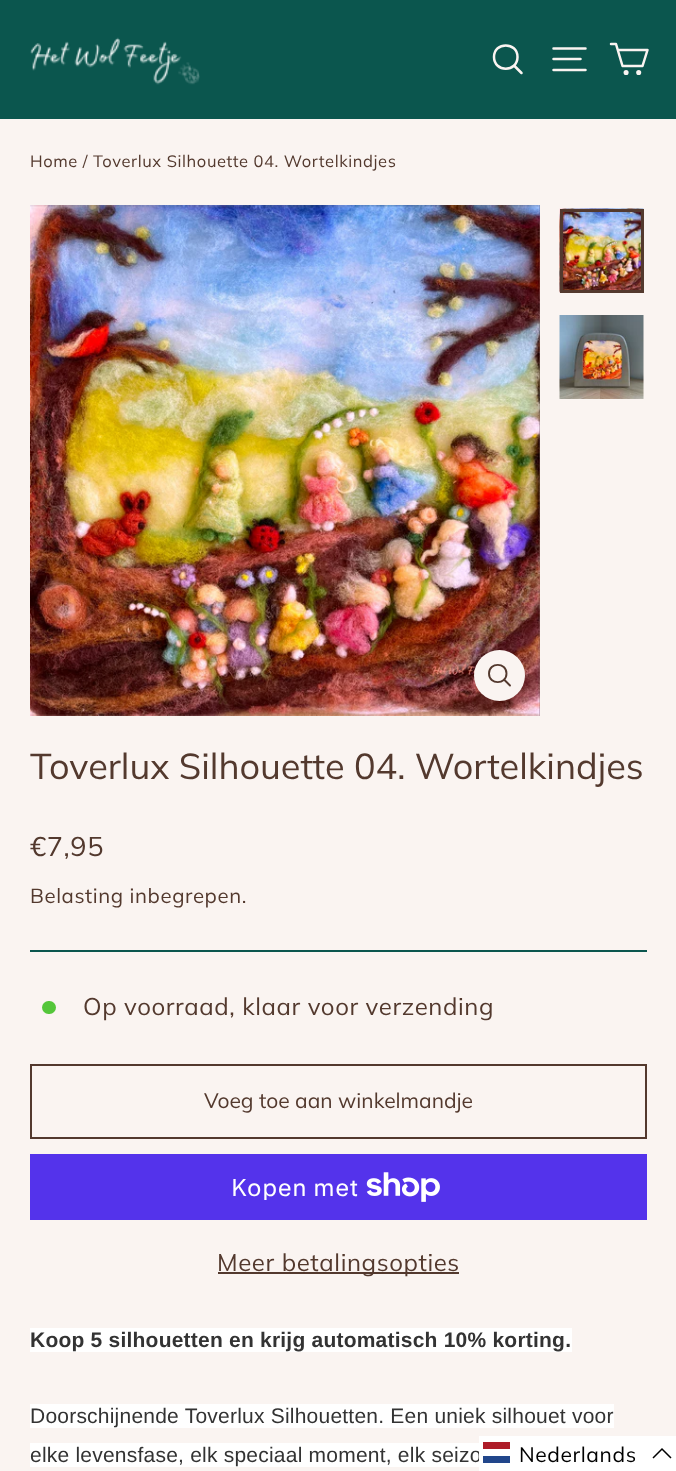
<!DOCTYPE html>
<meta charset="utf-8">
<style>body { margin: 0 } canvas { display: block }</style>
<canvas id="canvas" width="676" height="1471"></canvas>
<img id="img1" src="img_01.png" hidden>
<img id="img2" src="img_02.png" hidden>
<img id="img3" src="img_03.png" hidden>
<img id="img4" src="img_04.png" hidden>
<img id="img5" src="img_05.png" hidden>
<script>
window.onload = function () {
	const canvas = document.getElementById("canvas");
	const ctx = canvas.getContext("2d");
	ctx.miterLimit = 4;
	ctx.fontKerning = "normal";
	function txt(s, x, y) {
		ctx.fillText(s, x, y);
	}
	function fill(x, y, w, h) {
		ctx.fillRect(x, y, w, h);
	}
	function round(x, y, w, h, r) {
		ctx.beginPath();
		ctx.roundRect(x, y, w, h, r);
		ctx.fill();
	}
	function img(id, x, y, w, h) {
		ctx.drawImage(document.getElementById(id), x, y, w, h);
	}

	ctx.fillStyle = "#FAF4F1";
	fill(0, 0, 676, 1471);
	ctx.fillStyle = "#0B564E";
	fill(0, 0, 676, 119);
	img("img1", 30, 37, 170, 48);
	ctx.beginPath();
	ctx.moveTo(517.5, 57);
	ctx.bezierCurveTo(517.5, 72.5, 494, 72.5, 494, 57);
	ctx.bezierCurveTo(494, 41.5, 517.5, 41.5, 517.5, 57);
	ctx.closePath();
	ctx.moveTo(521.5, 73);
	ctx.lineTo(514, 65.5);
	ctx.strokeStyle = "#FAF4F1";
	ctx.lineWidth = 2.5;
	ctx.lineCap = "round";
	ctx.lineJoin = "round";
	ctx.stroke();
	ctx.beginPath();
	ctx.moveTo(553.5, 48.5);
	ctx.lineTo(585.5, 48.5);
	ctx.moveTo(553.5, 59);
	ctx.lineTo(580.5, 59);
	ctx.moveTo(553.5, 70);
	ctx.lineTo(585.5, 70);
	ctx.stroke();
	ctx.beginPath();
	ctx.moveTo(618, 50);
	ctx.lineTo(647.5, 50);
	ctx.lineTo(642.5, 66);
	ctx.lineTo(622.5, 66);
	ctx.lineTo(616, 44);
	ctx.lineTo(611, 44);
	ctx.stroke();
	ctx.beginPath();
	ctx.arc(626.1, 72.5, 1.3, 0, Math.PI * 2);
	ctx.stroke();
	ctx.beginPath();
	ctx.arc(638.7, 72.5, 1.3, 0, Math.PI * 2);
	ctx.stroke();
	img("img2", 30, 205, 510, 511);
	ctx.fillStyle = "#FAF4F1";
	ctx.beginPath();
	ctx.arc(499.5, 675.5, 25.5, 0, Math.PI * 2);
	ctx.fill();
	ctx.beginPath();
	ctx.moveTo(506.5, 673.5);
	ctx.bezierCurveTo(506.5, 685, 489, 685, 489, 673.5);
	ctx.bezierCurveTo(489, 662, 506.5, 662, 506.5, 673.5);
	ctx.closePath();
	ctx.moveTo(510, 685.5);
	ctx.lineTo(504, 679.5);
	ctx.strokeStyle = "#53392E";
	ctx.lineWidth = 1.9;
	ctx.stroke();
	img("img3", 559, 208, 85, 85);
	ctx.lineWidth = 3;
	ctx.lineJoin = "miter";
	ctx.strokeRect(561.5, 210.5, 81, 81);
	img("img4", 559, 315, 85, 84);
	ctx.fillStyle = "#0B564E";
	fill(30, 950, 617, 2);
	ctx.fillStyle = "#54C63A";
	round(42, 1001, 14, 13, 6.5);
	ctx.lineWidth = 2;
	ctx.strokeRect(31, 1065, 615, 73);
	ctx.fillStyle = "#5433EB";
	fill(30, 1154, 617, 66);
	img("img5", 366, 1172, 74, 30);
	ctx.fillStyle = "#53392E";
	fill(218, 1272, 241, 2);
	ctx.fillStyle = "#FFFFFF";
	fill(30, 1328, 542, 24);
	fill(30, 1404, 584, 24);
	fill(30, 1443, 449, 24);
	ctx.letterSpacing = "0.6px";
	ctx.font = "16.5px Muli";
	ctx.fillStyle = "#53392E";
	txt("Home / Toverlux Silhouette 04. Wortelkindjes", 30, 167);
	ctx.letterSpacing = "0px";
	ctx.font = "36px Muli";
	txt("Toverlux Silhouette 04. Wortelkindjes", 30, 779);
	ctx.letterSpacing = "0.6px";
	ctx.font = "27px Muli";
	txt("€7,95", 30, 856);
	ctx.font = "20.4px Muli";
	txt("Belasting inbegrepen.", 30, 903);
	ctx.font = "24px Muli";
	txt("Op voorraad, klaar voor verzending", 83, 1015);
	ctx.letterSpacing = "0px";
	ctx.font = "21px Muli";
	txt("Voeg toe aan winkelmandje", 204, 1108);
	ctx.letterSpacing = "0.6px";
	ctx.font = "24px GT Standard";
	ctx.fillStyle = "#FFFFFF";
	txt("Kopen met", 231, 1196);
	ctx.font = "24px Muli";
	ctx.fillStyle = "#53392E";
	txt("Meer betalingsopties", 217, 1271);
	ctx.letterSpacing = "0.22px";
	ctx.font = "bold 21px Liberation Sans";
	ctx.fillStyle = "#333333";
	txt("Koop 5 silhouetten en krijg automatisch 10% korting.", 30, 1347);
	ctx.font = "21px Liberation Sans";
	txt("Doorschijnende Toverlux Silhouetten. Een uniek silhouet voor", 30, 1423);
	txt("elke levensfase, elk speciaal moment, elk seizo", 30, 1462);
	ctx.fillStyle = "#FFFFFF";
	fill(479, 1436, 197, 35);
	ctx.fillStyle = "#21468B";
	fill(483, 1456, 27, 7);
	ctx.fillStyle = "#AE1C28";
	fill(483, 1442, 27, 7);
	ctx.letterSpacing = "0.6px";
	ctx.font = "21px Muli";
	ctx.fillStyle = "#000000";
	txt("Nederlands", 519, 1462);
	ctx.beginPath();
	ctx.moveTo(671, 1458);
	ctx.lineTo(662, 1449);
	ctx.lineTo(653, 1458);
	ctx.strokeStyle = "#000000";
	ctx.lineWidth = 1.5;
	ctx.lineCap = "butt";
	ctx.stroke();
};
</script>
